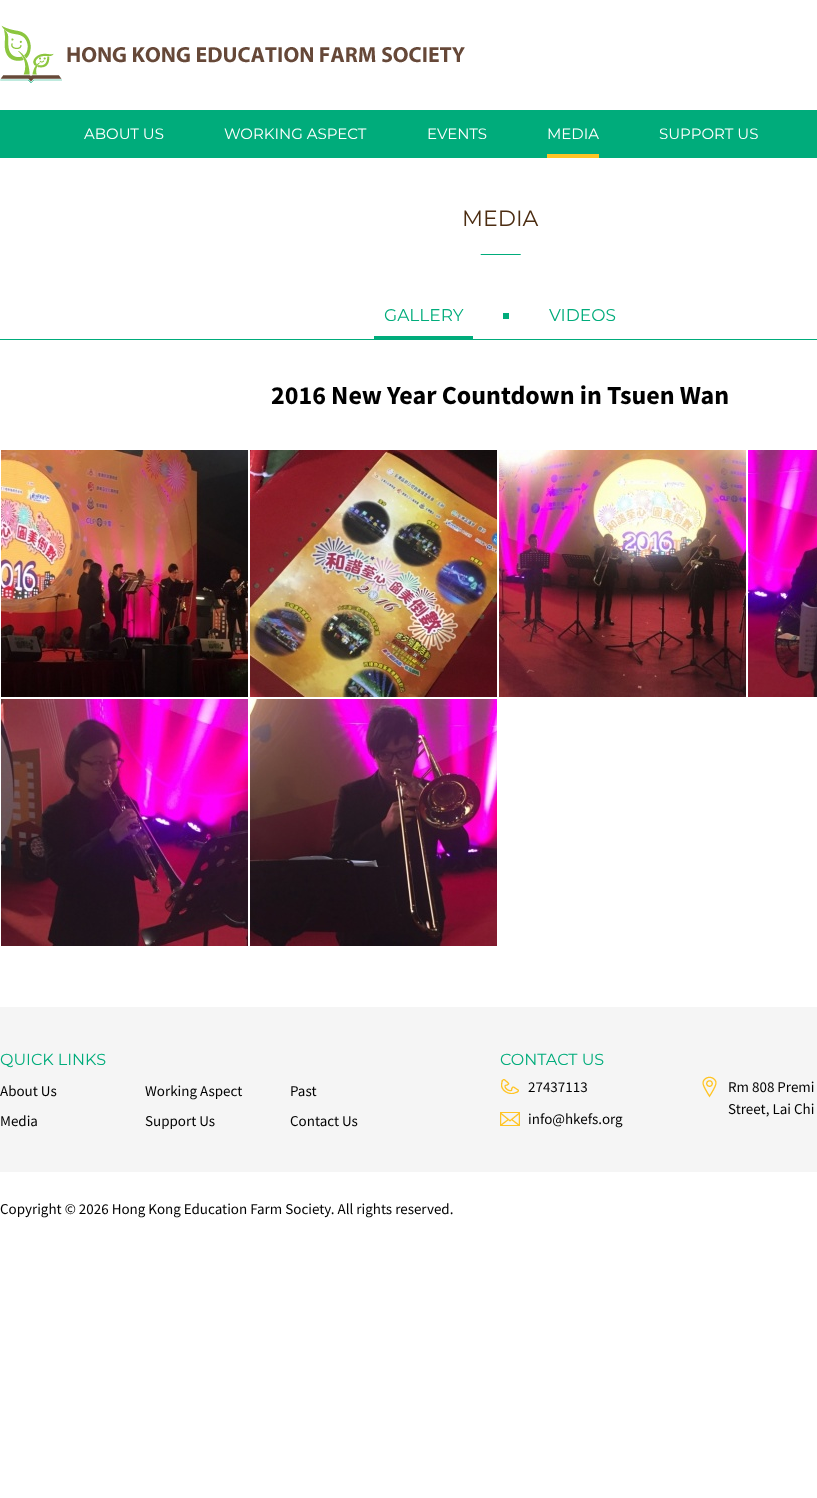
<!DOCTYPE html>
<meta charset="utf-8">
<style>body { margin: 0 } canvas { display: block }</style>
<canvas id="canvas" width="817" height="1498"></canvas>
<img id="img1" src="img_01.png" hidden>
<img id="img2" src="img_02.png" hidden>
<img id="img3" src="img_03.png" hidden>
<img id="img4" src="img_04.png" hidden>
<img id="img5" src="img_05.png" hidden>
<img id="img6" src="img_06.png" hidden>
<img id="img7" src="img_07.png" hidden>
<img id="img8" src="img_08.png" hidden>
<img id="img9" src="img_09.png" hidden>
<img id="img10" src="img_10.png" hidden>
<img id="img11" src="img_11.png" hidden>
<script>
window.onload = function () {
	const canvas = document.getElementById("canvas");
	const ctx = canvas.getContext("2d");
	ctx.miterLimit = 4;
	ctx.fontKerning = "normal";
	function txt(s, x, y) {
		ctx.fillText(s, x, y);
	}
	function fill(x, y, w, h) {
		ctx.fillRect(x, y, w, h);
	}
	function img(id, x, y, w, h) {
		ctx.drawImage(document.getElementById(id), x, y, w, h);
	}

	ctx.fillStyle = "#FFFFFF";
	fill(0, 0, 817, 1498);
	img("img1", 0, 25, 465, 58);
	ctx.fillStyle = "#00AC7B";
	fill(0, 110, 817, 48);
	ctx.fillStyle = "#FFC425";
	fill(547, 154, 52, 4);
	img("img2", 480, 254, 41, 1);
	ctx.fillStyle = "#00AC7B";
	fill(0, 339, 817, 1);
	fill(374, 336, 99, 3);
	fill(503, 313, 6, 6);
	img("img3", 1, 450, 247, 247);
	img("img4", 250, 450, 247, 247);
	img("img5", 499, 450, 247, 247);
	img("img6", 748, 450, 69, 247);
	img("img7", 1, 699, 247, 247);
	img("img8", 250, 699, 247, 247);
	ctx.fillStyle = "#F5F5F5";
	fill(0, 1007, 817, 165);
	img("img9", 501, 1079, 18, 15);
	img("img10", 500, 1112, 20, 14);
	img("img11", 702, 1076, 15, 22);
	ctx.font = "15px Montserrat";
	ctx.fillStyle = "#FFFFFF";
	txt("ABOUT US", 84, 139);
	txt("WORKING ASPECT", 224, 139);
	txt("EVENTS", 427, 139);
	txt("MEDIA", 547, 139);
	txt("SUPPORT US", 659, 139);
	ctx.font = "22px Montserrat";
	ctx.fillStyle = "#4C2D12";
	txt("MEDIA", 462, 226);
	ctx.font = "17px Montserrat";
	ctx.fillStyle = "#00AC7B";
	txt("GALLERY", 384, 321);
	txt("VIDEOS", 549, 321);
	ctx.font = "bold 26px Source Sans Pro";
	ctx.fillStyle = "#000000";
	txt("2016 New Year Countdown in Tsuen Wan", 271, 404);
	ctx.font = "16px Montserrat";
	ctx.fillStyle = "#00AC7B";
	txt("QUICK LINKS", 0, 1065);
	ctx.font = "15px Source Sans Pro";
	ctx.fillStyle = "#000000";
	txt("About Us", 0, 1096);
	txt("Working Aspect", 145, 1096);
	txt("Past", 290, 1096);
	txt("Media", 0, 1126);
	txt("Support Us", 145, 1126);
	txt("Contact Us", 290, 1126);
	ctx.font = "16px Montserrat";
	ctx.fillStyle = "#00AC7B";
	txt("CONTACT US", 500, 1065);
	ctx.font = "15px Source Sans Pro";
	ctx.fillStyle = "#000000";
	txt("27437113", 528, 1092);
	txt("info@hkefs.org", 528, 1124);
	txt("Rm 808 Premi", 728, 1092);
	txt("Street, Lai Chi", 728, 1114);
	txt("Copyright © 2026 Hong Kong Education Farm Society. All rights reserved.", 0, 1214);
};
</script>
